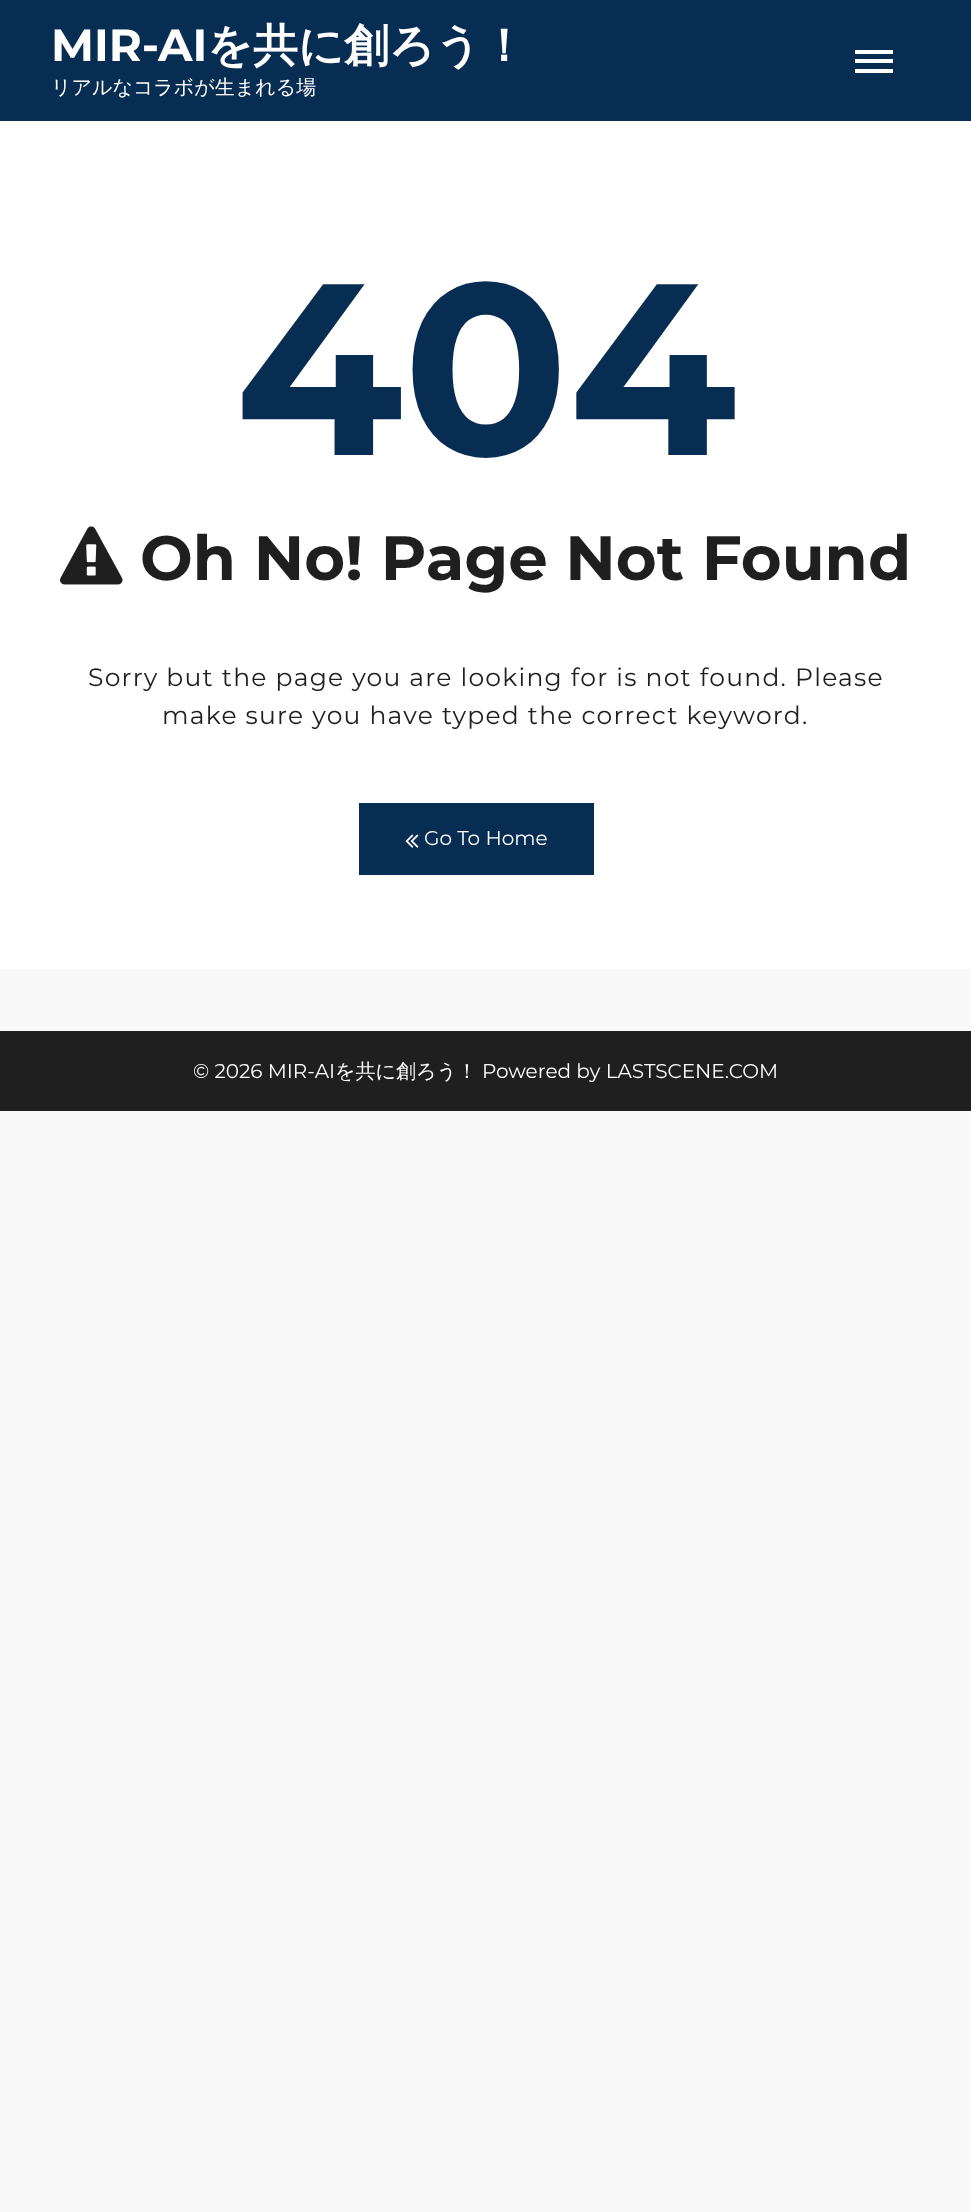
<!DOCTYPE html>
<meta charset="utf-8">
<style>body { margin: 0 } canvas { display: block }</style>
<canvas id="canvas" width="971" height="2212"></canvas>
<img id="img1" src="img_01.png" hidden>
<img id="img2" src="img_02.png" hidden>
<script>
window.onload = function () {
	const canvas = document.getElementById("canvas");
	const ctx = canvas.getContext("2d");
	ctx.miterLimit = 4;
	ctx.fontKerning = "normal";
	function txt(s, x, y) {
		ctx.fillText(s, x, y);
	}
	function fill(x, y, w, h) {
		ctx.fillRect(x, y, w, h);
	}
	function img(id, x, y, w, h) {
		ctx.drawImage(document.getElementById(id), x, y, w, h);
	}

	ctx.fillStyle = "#F9F9F9";
	fill(0, 0, 971, 2212);
	ctx.fillStyle = "#082D53";
	fill(0, 0, 971, 121);
	ctx.fillStyle = "#FFFFFF";
	fill(855, 50, 38, 4);
	fill(855, 59, 38, 4);
	fill(855, 69, 38, 4);
	fill(0, 121, 971, 848);
	img("img1", 60, 526, 63, 59);
	ctx.fillStyle = "#082D53";
	fill(359, 803, 235, 72);
	img("img2", 405, 834, 14, 14);
	ctx.fillStyle = "#1F1F1F";
	fill(0, 1031, 971, 80);
	ctx.font = "bold 45px Montserrat";
	ctx.fillStyle = "#FFFFFF";
	txt("MIR-AI", 51, 61);
	ctx.font = "bold 45px WenQuanYi Zen Hei";
	txt("を共に創ろう！", 207, 61);
	ctx.font = "500 20px WenQuanYi Zen Hei";
	txt("リアルなコラボが生まれる場", 51, 94);
	ctx.font = "bold 244px Montserrat";
	ctx.fillStyle = "#082D53";
	txt("404", 235, 455);
	ctx.font = "bold 62.5px Montserrat";
	ctx.fillStyle = "#1F1F1F";
	txt("Oh No! Page Not Found", 140, 580);
	ctx.letterSpacing = "1.25px";
	ctx.font = "25px Montserrat";
	txt("Sorry but the page you are looking for is not found. Please", 88, 686);
	txt("make sure you have typed the correct keyword.", 162, 724);
	ctx.letterSpacing = "0px";
	ctx.font = "20px Montserrat";
	ctx.fillStyle = "#FFFFFF";
	txt("Go To Home", 424, 845);
	txt("© 2026 MIR-AI", 193, 1078);
	ctx.font = "500 20px WenQuanYi Zen Hei";
	txt("を共に創ろう！", 335, 1078);
	ctx.font = "20px Montserrat";
	txt("Powered by LASTSCENE.COM", 482, 1078);
};
</script>
